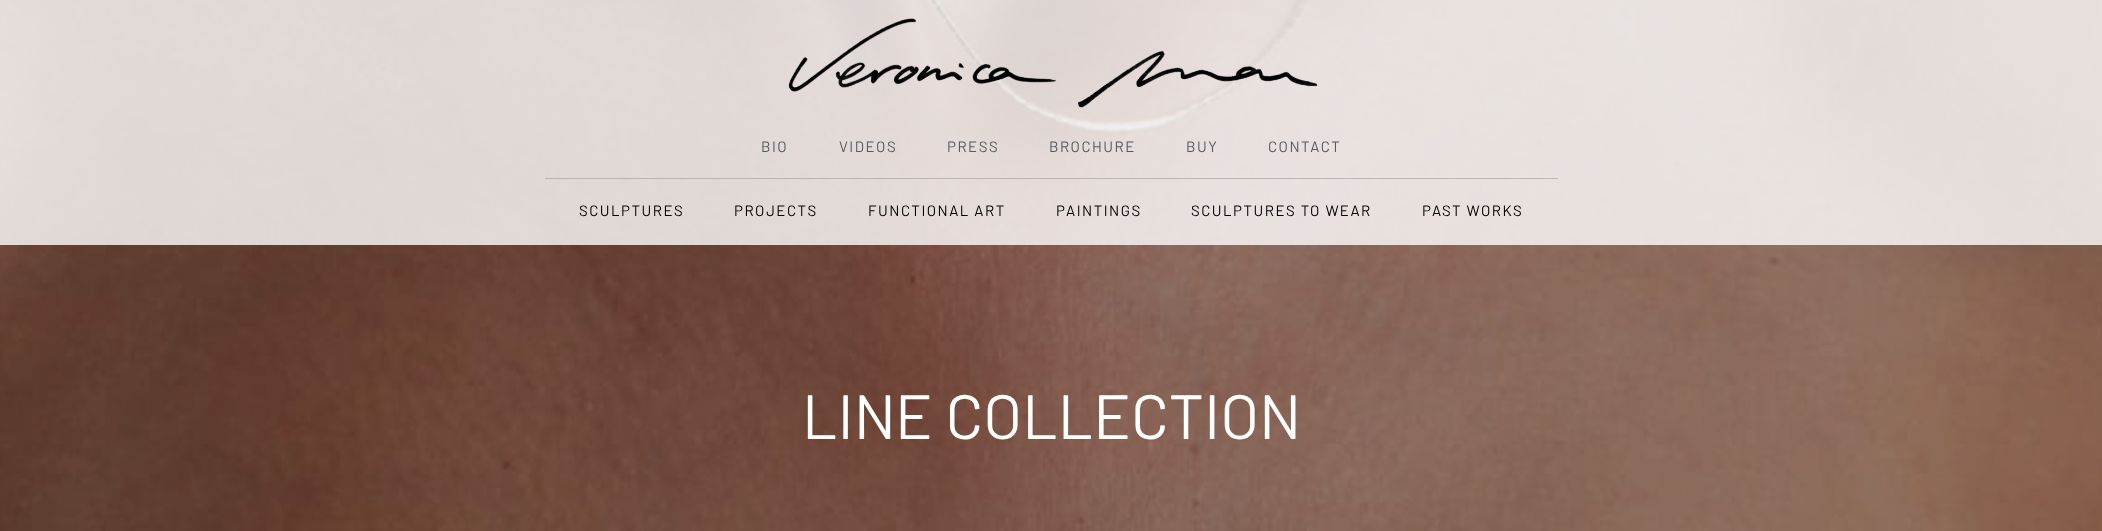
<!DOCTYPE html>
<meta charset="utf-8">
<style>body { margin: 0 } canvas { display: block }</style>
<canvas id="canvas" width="2102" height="531"></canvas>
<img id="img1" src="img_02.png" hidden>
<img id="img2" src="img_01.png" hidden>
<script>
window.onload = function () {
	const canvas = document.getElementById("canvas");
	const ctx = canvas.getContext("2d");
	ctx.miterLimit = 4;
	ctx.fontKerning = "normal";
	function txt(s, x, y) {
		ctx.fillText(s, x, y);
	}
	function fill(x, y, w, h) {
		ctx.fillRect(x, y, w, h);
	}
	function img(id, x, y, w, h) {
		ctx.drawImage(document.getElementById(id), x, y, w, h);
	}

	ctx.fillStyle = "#FFFFFF";
	fill(0, 0, 2102, 531);
	img("img1", 0, 0, 2102, 531);
	ctx.fillStyle = "rgba(255, 255, 255, 0.8)";
	fill(0, 0, 2102, 245);
	img("img2", 788, 18, 530, 90);
	ctx.fillStyle = "rgba(122, 122, 122, 0.39)";
	fill(545, 178, 1013, 1);
	ctx.letterSpacing = "1.5px";
	ctx.font = "15px Barlow";
	ctx.fillStyle = "#54595F";
	txt("BIO", 761, 152);
	txt("VIDEOS", 839, 152);
	txt("PRESS", 947, 152);
	txt("BROCHURE", 1049, 152);
	txt("BUY", 1186, 152);
	txt("CONTACT", 1268, 152);
	ctx.fillStyle = "#000000";
	txt("SCULPTURES", 579, 216);
	txt("PROJECTS", 734, 216);
	txt("FUNCTIONAL ART", 868, 216);
	txt("PAINTINGS", 1056, 216);
	txt("SCULPTURES TO WEAR", 1191, 216);
	txt("PAST WORKS", 1422, 216);
	ctx.letterSpacing = "0px";
	ctx.font = "62.5px Barlow";
	ctx.fillStyle = "#FFFFFF";
	txt("LINE COLLECTION", 802, 439);
};
</script>
